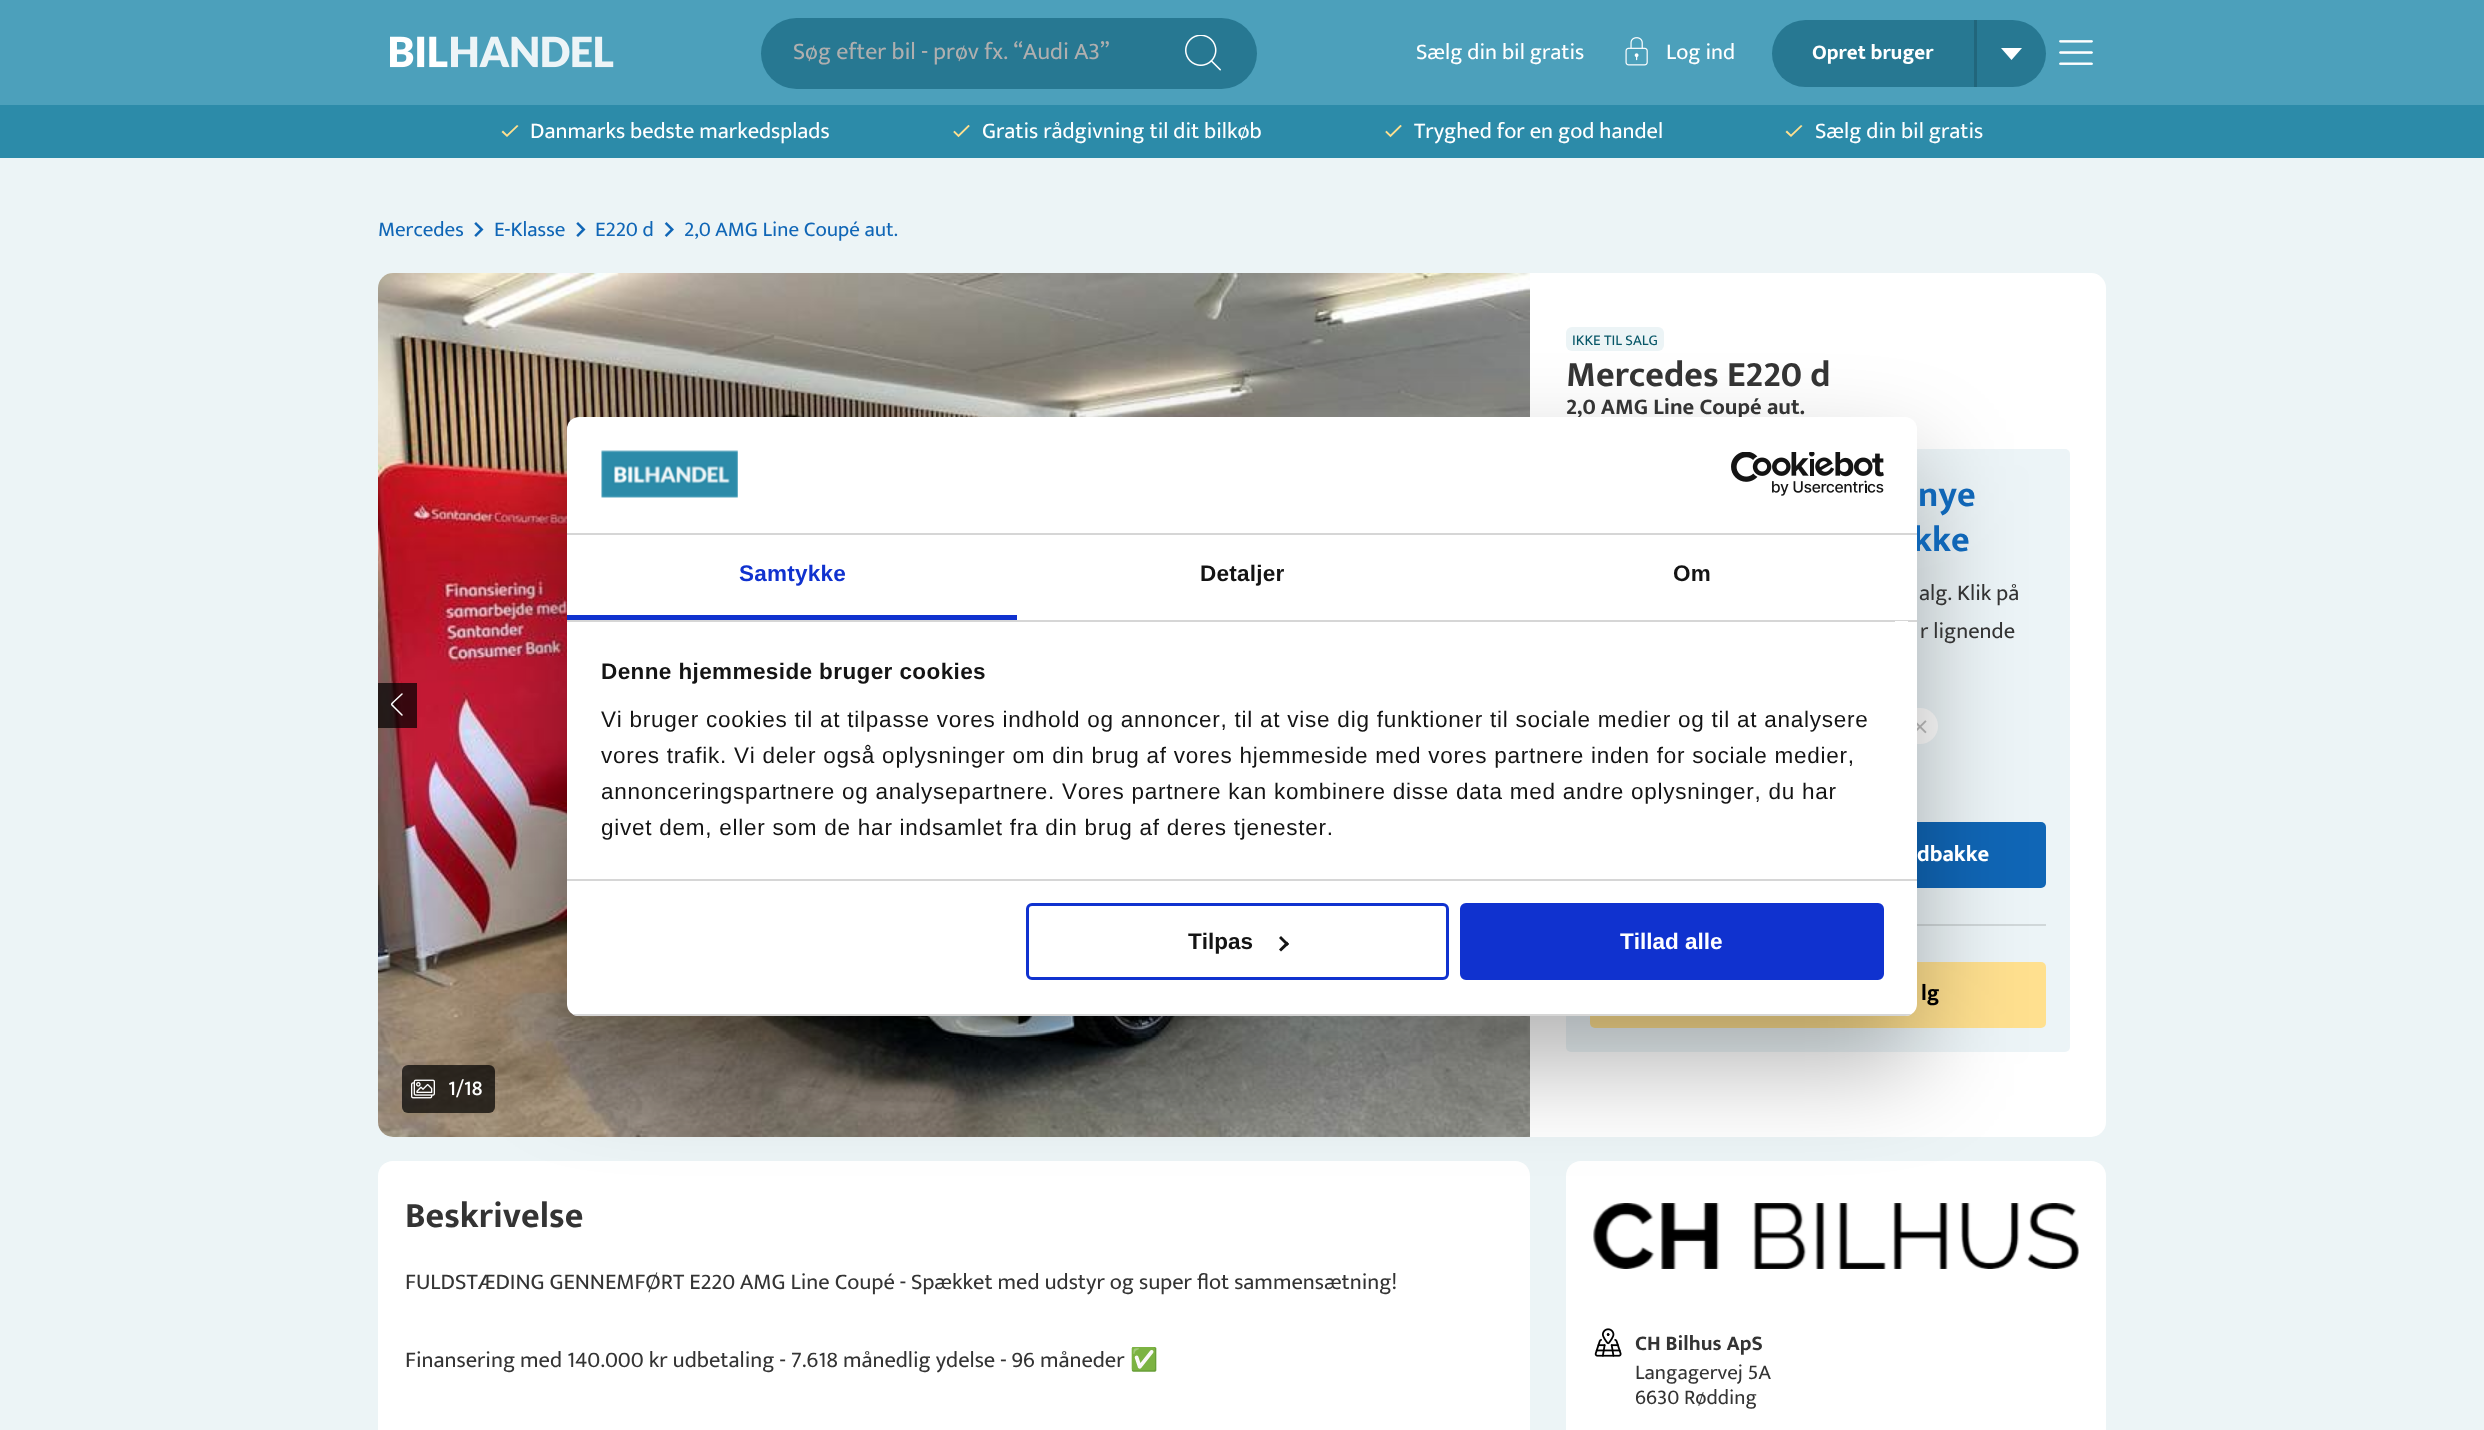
<!DOCTYPE html>
<meta charset="utf-8">
<style>body { margin: 0 } canvas { display: block }</style>
<canvas id="canvas" width="2484" height="1430"></canvas>
<img id="img1" src="img_01.png" hidden>
<img id="img2" src="img_02.png" hidden>
<img id="img3" src="img_03.png" hidden>
<img id="img4" src="img_04.png" hidden>
<img id="img5" src="img_05.png" hidden>
<img id="img6" src="img_06.png" hidden>
<img id="img7" src="img_07.png" hidden>
<img id="img8" src="img_08.png" hidden>
<img id="img9" src="img_09.png" hidden>
<img id="img10" src="img_10.png" hidden>
<img id="img11" src="img_11.png" hidden>
<img id="img12" src="img_12.png" hidden>
<img id="img13" src="img_13.png" hidden>
<img id="img14" src="img_14.png" hidden>
<script>
window.onload = function () {
	const canvas = document.getElementById("canvas");
	const ctx = canvas.getContext("2d");
	ctx.miterLimit = 4;
	ctx.fontKerning = "none";
	function txt(s, x, y) {
		ctx.fillText(s, x, y);
	}
	function fill(x, y, w, h) {
		ctx.fillRect(x, y, w, h);
	}
	function round(x, y, w, h, r) {
		ctx.beginPath();
		ctx.roundRect(x, y, w, h, r);
		ctx.fill();
	}
	function img(id, x, y, w, h) {
		ctx.drawImage(document.getElementById(id), x, y, w, h);
	}

	ctx.fillStyle = "#ECF4F6";
	fill(0, 0, 2484, 1430);
	ctx.fillStyle = "#4CA0BB";
	fill(0, 0, 2484, 105);
	img("img1", 390, 36, 224, 32);
	ctx.fillStyle = "#277892";
	round(761, 18, 496, 71, 35.5);
	img("img2", 1185, 35, 36, 36);
	img("img3", 1625, 37, 23, 29);
	round(1772, 20, 274, 67, 33.5);
	ctx.fillStyle = "#21667C";
	fill(1974, 20, 3, 67);
	ctx.fillStyle = "#FFFFFF";
	ctx.beginPath();
	ctx.moveTo(2022, 48);
	ctx.lineTo(2001, 48);
	ctx.lineTo(2011.5, 60);
	ctx.closePath();
	ctx.fill();
	img("img4", 2059, 40, 34, 25);
	ctx.fillStyle = "#2C8BA9";
	fill(0, 105, 2484, 53);
	ctx.fillStyle = "#FFE08F";
	ctx.beginPath();
	ctx.moveTo(507, 134.5);
	ctx.lineTo(503, 130.5);
	ctx.lineTo(501.5, 132);
	ctx.lineTo(507, 137);
	ctx.lineTo(518.5, 126);
	ctx.lineTo(517, 125);
	ctx.closePath();
	ctx.fill();
	img("img5", 953, 125, 17, 13);
	img("img5", 1385, 125, 17, 13);
	ctx.beginPath();
	ctx.moveTo(1791, 134.5);
	ctx.lineTo(1787, 130.5);
	ctx.lineTo(1785.5, 132);
	ctx.lineTo(1791, 137);
	ctx.lineTo(1802.5, 126);
	ctx.lineTo(1801, 125);
	ctx.closePath();
	ctx.fill();
	img("img6", 474, 222, 10, 15);
	img("img6", 576, 222, 10, 15);
	img("img7", 664, 222, 10, 15);
	ctx.fillStyle = "#FFFFFF";
	ctx.beginPath();
	ctx.roundRect(1530, 273, 576, 864, [0, 15, 15, 0]);
	ctx.fill();
	ctx.fillStyle = "#ECF4F6";
	round(1566, 327, 98, 24, 6);
	ctx.fillStyle = "#ECF4F7";
	round(1566, 449, 504, 603, 5);
	ctx.fillStyle = "#FFFFFF";
	round(1794, 708, 144, 36, 18);
	img("img8", 1917, 720, 10, 14);
	ctx.fillStyle = "#1066B6";
	round(1590, 822, 456, 66, 5);
	ctx.fillStyle = "#D0D7D9";
	fill(1917, 924, 129, 2);
	ctx.fillStyle = "#FFE08F";
	round(1590, 962, 456, 66, 5);
	ctx.fillStyle = "#FFFFFF";
	ctx.beginPath();
	ctx.roundRect(378, 273, 1152, 864, [15, 0, 0, 15]);
	ctx.fill();
	img("img9", 378, 273, 1152, 864);
	ctx.fillStyle = "rgba(0, 0, 0, 0.71)";
	fill(378, 683, 39, 45);
	ctx.beginPath();
	ctx.moveTo(402, 715);
	ctx.lineTo(393.5, 706.5);
	ctx.bezierCurveTo(391, 704, 391, 704.5, 393.5, 702);
	ctx.lineTo(402, 694);
	ctx.strokeStyle = "#FFFFFF";
	ctx.lineWidth = 1.5;
	ctx.lineCap = "round";
	ctx.lineJoin = "round";
	ctx.stroke();
	ctx.fillStyle = "rgba(0, 0, 0, 0.7)";
	round(402, 1065, 93, 48, 6);
	img("img10", 411, 1079, 24, 20);
	ctx.fillStyle = "#FFFFFF";
	ctx.beginPath();
	ctx.moveTo(393, 1161);
	ctx.lineTo(1515, 1161);
	ctx.bezierCurveTo(1523.5, 1161, 1530, 1167.5, 1530, 1176);
	ctx.lineTo(1530, 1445);
	ctx.lineTo(378, 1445);
	ctx.lineTo(378, 1176);
	ctx.bezierCurveTo(378, 1167.5, 384.5, 1161, 393, 1161);
	ctx.closePath();
	ctx.fill();
	ctx.beginPath();
	ctx.moveTo(1581, 1161);
	ctx.lineTo(2091, 1161);
	ctx.bezierCurveTo(2099.5, 1161, 2106, 1167.5, 2106, 1176);
	ctx.lineTo(2106, 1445);
	ctx.lineTo(1566, 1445);
	ctx.lineTo(1566, 1176);
	ctx.bezierCurveTo(1566, 1167.5, 1572.5, 1161, 1581, 1161);
	ctx.closePath();
	ctx.fill();
	img("img11", 1593, 1203, 486, 66);
	img("img12", 1594, 1328, 28, 29);
	ctx.fillStyle = "rgba(0, 0, 0, 0.3)";
	ctx.filter = "blur(51px)";
	ctx.beginPath();
	ctx.roundRect(567, 465, 1350, 599, 12);
	ctx.fill();
	ctx.filter = "none";
	ctx.font = "24px Mukta";
	ctx.fillStyle = "#AFAFAF";
	txt("Søg efter bil - prøv fx. “Audi A3”", 793, 59);
	ctx.font = "22.5px Mukta";
	ctx.fillStyle = "#FFFFFF";
	txt("Sælg din bil gratis", 1416, 59);
	txt("Log ind", 1666, 59);
	ctx.font = "bold 21px Mukta";
	txt("Opret bruger", 1812, 59);
	ctx.font = "22.5px Mukta";
	txt("Danmarks bedste markedsplads", 530, 138);
	txt("Gratis rådgivning til dit bilkøb", 982, 138);
	txt("Tryghed for en god handel", 1414, 138);
	txt("Sælg din bil gratis", 1815, 138);
	ctx.font = "21px Mukta";
	ctx.fillStyle = "#1066B6";
	txt("Mercedes", 378, 236);
	txt("E-Klasse", 494, 236);
	txt("E220 d", 595, 236);
	txt("2,0 AMG Line Coupé aut.", 684, 236);
	ctx.font = "15px Mukta";
	ctx.fillStyle = "#085768";
	txt("IKKE TIL SALG", 1572, 345);
	ctx.font = "bold 36px Mukta";
	ctx.fillStyle = "#343434";
	txt("Mercedes E220 d", 1566, 386);
	ctx.font = "bold 22.5px Mukta";
	txt("2,0 AMG Line Coupé aut.", 1566, 414);
	ctx.font = "bold 36px Mukta";
	ctx.fillStyle = "#1066B6";
	txt("nye", 1918, 506);
	txt("kke", 1913, 551);
	ctx.font = "22.5px Mukta";
	ctx.fillStyle = "#343434";
	txt("alg. Klik på", 1919, 600);
	txt("r lignende", 1920, 638);
	ctx.font = "bold 22.5px Mukta";
	ctx.fillStyle = "#FFFFFF";
	txt("dbakke", 1917, 861);
	ctx.fillStyle = "#000000";
	txt("lg", 1921, 1000);
	ctx.font = "500 21px Mukta";
	ctx.fillStyle = "#FFFFFF";
	txt("1/18", 448, 1095);
	ctx.font = "bold 36px Mukta";
	ctx.fillStyle = "#343434";
	txt("Beskrivelse", 405, 1227);
	ctx.font = "22.5px Mukta";
	txt("FULDSTÆDING GENNEMFØRT E220 AMG Line Coupé - Spækket med udstyr og super flot sammensætning!", 405, 1289);
	txt("Finansering med 140.000 kr udbetaling - 7.618 månedlig ydelse - 96 måneder", 405, 1367);
	ctx.font = "22.5px Noto Color Emoji";
	txt("✅", 1130, 1367);
	ctx.font = "bold 21px Mukta";
	txt("CH Bilhus ApS", 1635, 1350);
	ctx.font = "21px Mukta";
	txt("Langagervej 5A", 1635, 1379);
	txt("6630 Rødding", 1635, 1404);
	ctx.fillStyle = "#FFFFFF";
	round(567, 417, 1350, 599, 12);
	ctx.fillStyle = "#D6D6D6";
	fill(567, 533, 1350, 2);
	img("img13", 601, 450, 137, 48);
	img("img14", 1731, 452, 153, 44);
	fill(567, 620, 1350, 2);
	ctx.fillStyle = "#1032CF";
	fill(567, 615, 450, 5);
	ctx.letterSpacing = "0.25px";
	ctx.font = "bold 22.5px Liberation Sans";
	txt("Samtykke", 739, 581);
	ctx.fillStyle = "#141414";
	txt("Detaljer", 1200, 581);
	txt("Om", 1673, 581);
	ctx.fillStyle = "#D6D6D6";
	fill(567, 879, 1350, 2);
	ctx.fillStyle = "#FFFFFF";
	fill(1895, 621, 13, 1);
	ctx.letterSpacing = "0.4px";
	ctx.fillStyle = "#141414";
	txt("Denne hjemmeside bruger cookies", 601, 679);
	ctx.letterSpacing = "0.75px";
	ctx.font = "22.5px Liberation Sans";
	txt("Vi bruger cookies til at tilpasse vores indhold og annoncer, til at vise dig funktioner til sociale medier og til at analysere", 601, 727);
	txt("vores trafik. Vi deler også oplysninger om din brug af vores hjemmeside med vores partnere inden for sociale medier,", 601, 763);
	txt("annonceringspartnere og analysepartnere. Vores partnere kan kombinere disse data med andre oplysninger, du har", 601, 799);
	txt("givet dem, eller som de har indsamlet fra din brug af deres tjenester.", 601, 835);
	ctx.save();
	ctx.beginPath();
	ctx.roundRect(567, 417, 1350, 599, 12);
	ctx.clip();
	ctx.fillStyle = "#D6D6D6";
	fill(567, 1014, 1350, 2);
	ctx.restore();
	ctx.beginPath();
	ctx.roundRect(1027.5, 904.5, 420, 74, 4.5);
	ctx.strokeStyle = "#1032CF";
	ctx.lineWidth = 3;
	ctx.lineJoin = "miter";
	ctx.stroke();
	ctx.letterSpacing = "0px";
	ctx.font = "bold 22.5px Liberation Sans";
	txt("Tilpas", 1188, 949);
	ctx.beginPath();
	ctx.moveTo(1281, 936);
	ctx.lineTo(1289, 944);
	ctx.lineTo(1287, 946);
	ctx.lineTo(1279, 938);
	ctx.closePath();
	ctx.fill();
	ctx.beginPath();
	ctx.moveTo(1287, 941.5);
	ctx.lineTo(1289, 944);
	ctx.lineTo(1281, 951.5);
	ctx.lineTo(1279, 949.5);
	ctx.closePath();
	ctx.fill();
	ctx.fillStyle = "#1032CF";
	ctx.beginPath();
	ctx.roundRect(1461.5, 904.5, 421, 74, 4.5);
	ctx.fill();
	ctx.stroke();
	ctx.fillStyle = "#FFFFFF";
	txt("Tillad alle", 1620, 949);
};
</script>
